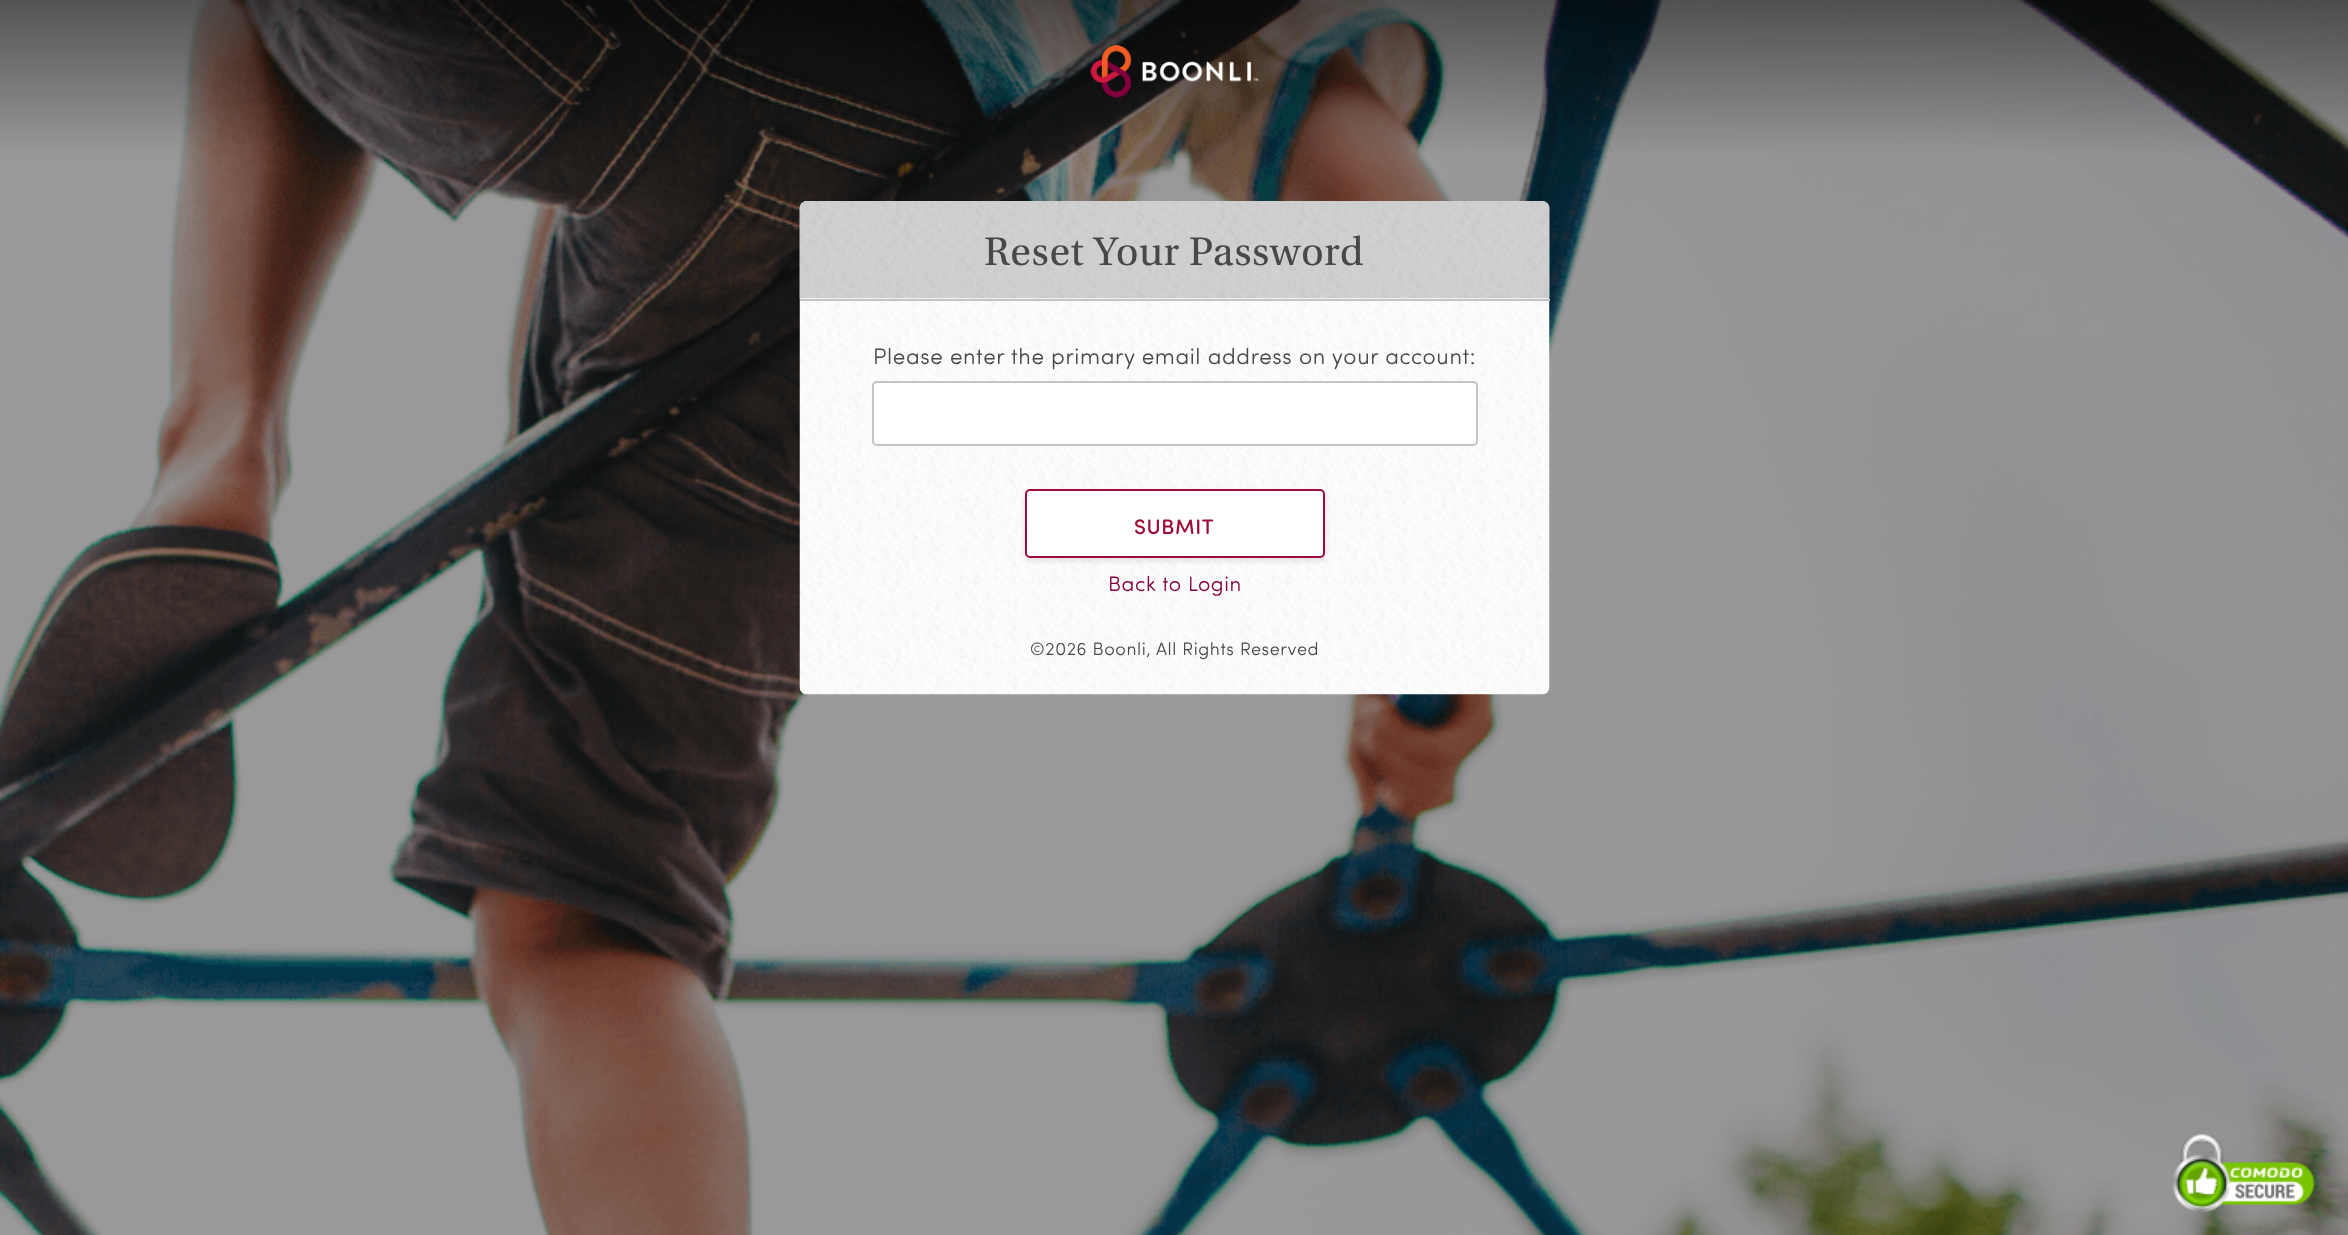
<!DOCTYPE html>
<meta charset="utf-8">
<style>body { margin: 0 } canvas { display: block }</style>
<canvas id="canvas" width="2348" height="1235"></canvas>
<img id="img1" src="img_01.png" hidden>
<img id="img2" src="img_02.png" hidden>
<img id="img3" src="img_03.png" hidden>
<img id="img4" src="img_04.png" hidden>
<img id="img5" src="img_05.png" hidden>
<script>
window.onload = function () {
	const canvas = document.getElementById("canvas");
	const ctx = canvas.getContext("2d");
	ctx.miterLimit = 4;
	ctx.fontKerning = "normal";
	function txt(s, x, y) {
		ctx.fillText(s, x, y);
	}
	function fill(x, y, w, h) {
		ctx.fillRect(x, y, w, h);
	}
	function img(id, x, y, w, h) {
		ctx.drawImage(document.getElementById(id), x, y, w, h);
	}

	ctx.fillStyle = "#FFFFFF";
	fill(0, 0, 2348, 1235);
	img("img1", 0, 0, 2348, 1235);
	img("img2", 1090, 45, 169, 53);
	img("img3", 799, 201, 751, 494);
	img("img4", 799, 201, 751, 98);
	ctx.fillStyle = "#C4C4C4";
	fill(800, 299, 750, 2);
	ctx.fillStyle = "#FFFFFF";
	ctx.beginPath();
	ctx.roundRect(873, 382, 604, 63, 4);
	ctx.fill();
	ctx.strokeStyle = "#C4C4C4";
	ctx.lineWidth = 2;
	ctx.stroke();
	ctx.fillStyle = "rgba(0, 0, 0, 0.1)";
	ctx.filter = "blur(3px)";
	ctx.beginPath();
	ctx.roundRect(1025, 492, 300, 69, 5);
	ctx.fill();
	ctx.filter = "none";
	ctx.fillStyle = "#FFFFFF";
	ctx.beginPath();
	ctx.roundRect(1026, 490, 298, 67, 4);
	ctx.fill();
	ctx.strokeStyle = "#9E0C38";
	ctx.stroke();
	img("img5", 2172, 1133, 143, 80);
	ctx.letterSpacing = "0.6px";
	ctx.font = "42px Utopia";
	ctx.fillStyle = "#484848";
	txt("Reset Your Password", 984, 265);
	ctx.font = "300 22.5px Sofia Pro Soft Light";
	txt("Please enter the primary email address on your account:", 873, 364);
	ctx.font = "500 21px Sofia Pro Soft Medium";
	ctx.fillStyle = "#9E0C38";
	txt("SUBMIT", 1134, 534);
	ctx.font = "300 21px Sofia Pro Soft Light";
	ctx.fillStyle = "#83003F";
	txt("Back to Login", 1108, 591);
	ctx.font = "300 18px Sofia Pro Soft Light";
	ctx.fillStyle = "#484848";
	txt("©2026 Boonli, All Rights Reserved", 1030, 655);
};
</script>
